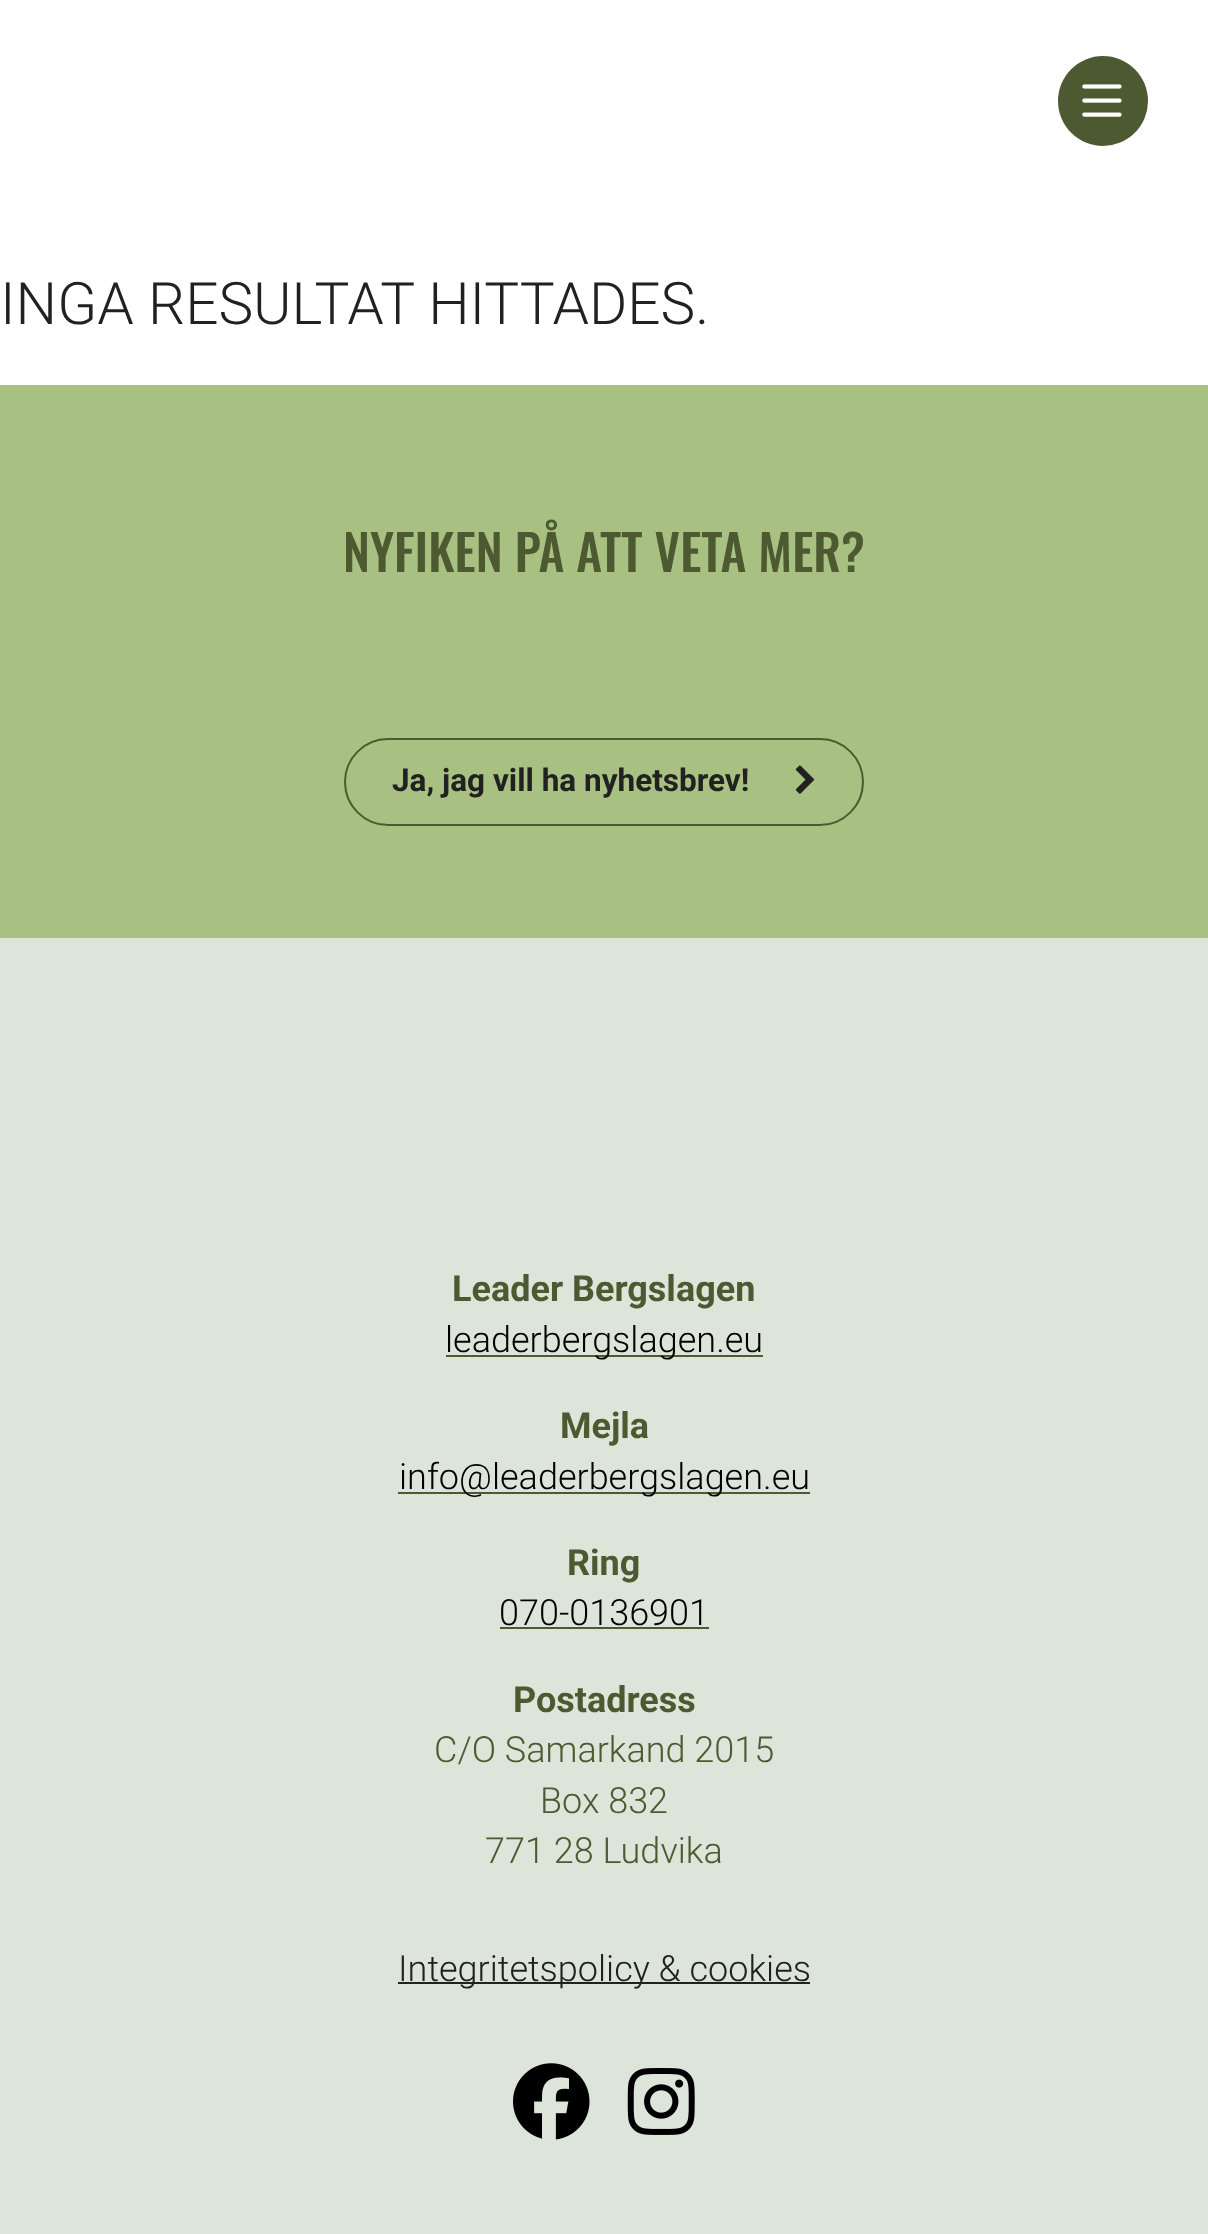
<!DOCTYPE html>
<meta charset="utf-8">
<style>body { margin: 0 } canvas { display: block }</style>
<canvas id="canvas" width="1208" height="2234"></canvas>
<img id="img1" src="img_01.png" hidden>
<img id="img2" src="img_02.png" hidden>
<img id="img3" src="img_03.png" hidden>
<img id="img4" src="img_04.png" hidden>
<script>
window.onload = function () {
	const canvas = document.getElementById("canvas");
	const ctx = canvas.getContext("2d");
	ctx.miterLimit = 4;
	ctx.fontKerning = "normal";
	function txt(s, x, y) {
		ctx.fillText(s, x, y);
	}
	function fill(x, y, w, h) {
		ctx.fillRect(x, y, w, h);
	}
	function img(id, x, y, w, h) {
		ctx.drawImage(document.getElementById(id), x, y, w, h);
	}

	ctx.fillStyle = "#FFFFFF";
	fill(0, 0, 1208, 2234);
	ctx.fillStyle = "#4D5A31";
	ctx.beginPath();
	ctx.arc(1103, 101, 45, 0, Math.PI * 2);
	ctx.fill();
	img("img1", 1082, 84, 40, 33);
	ctx.fillStyle = "#A8C082";
	fill(0, 385, 1208, 553);
	ctx.beginPath();
	ctx.roundRect(345, 739, 518, 86, 43);
	ctx.strokeStyle = "#4D5A31";
	ctx.lineWidth = 2;
	ctx.stroke();
	img("img2", 795, 765, 19, 29);
	ctx.fillStyle = "#DDE5DA";
	fill(0, 938, 1208, 1296);
	ctx.fillStyle = "#4D5A31";
	fill(446, 1355, 317, 2);
	fill(398, 1492, 412, 2);
	fill(500, 1627, 209, 2);
	ctx.fillStyle = "#212121";
	fill(398, 1982, 412, 2);
	img("img3", 513, 2063, 77, 77);
	img("img4", 627, 2068, 68, 67);
	ctx.font = "300 58.5px Roboto";
	txt("INGA RESULTAT HITTADES.", 0, 324);
	ctx.font = "500 49.5px Oswald";
	ctx.fillStyle = "#4D5A31";
	txt("NYFIKEN PÅ ATT VETA MER?", 343, 572);
	ctx.font = "bold 31.5px Roboto";
	ctx.fillStyle = "#212121";
	txt("Ja, jag vill ha nyhetsbrev!", 392, 791);
	ctx.font = "bold 36px Roboto";
	ctx.fillStyle = "#4D5A31";
	txt("Leader Bergslagen", 452, 1301);
	ctx.font = "300 36px Roboto";
	ctx.fillStyle = "#000000";
	txt("leaderbergslagen.eu", 445, 1352);
	ctx.font = "bold 36px Roboto";
	ctx.fillStyle = "#4D5A31";
	txt("Mejla", 560, 1438);
	ctx.font = "300 36px Roboto";
	ctx.fillStyle = "#000000";
	txt("info@leaderbergslagen.eu", 399, 1489);
	ctx.font = "bold 36px Roboto";
	ctx.fillStyle = "#4D5A31";
	txt("Ring", 567, 1575);
	ctx.font = "300 36px Roboto";
	ctx.fillStyle = "#000000";
	txt("070-0136901", 499, 1625);
	ctx.font = "bold 36px Roboto";
	ctx.fillStyle = "#4D5A31";
	txt("Postadress", 513, 1712);
	ctx.font = "300 36px Roboto";
	txt("C/O Samarkand 2015", 434, 1762);
	txt("Box 832", 540, 1813);
	txt("771 28 Ludvika", 485, 1863);
	ctx.fillStyle = "#212121";
	txt("Integritetspolicy & cookies", 398, 1981);
};
</script>
